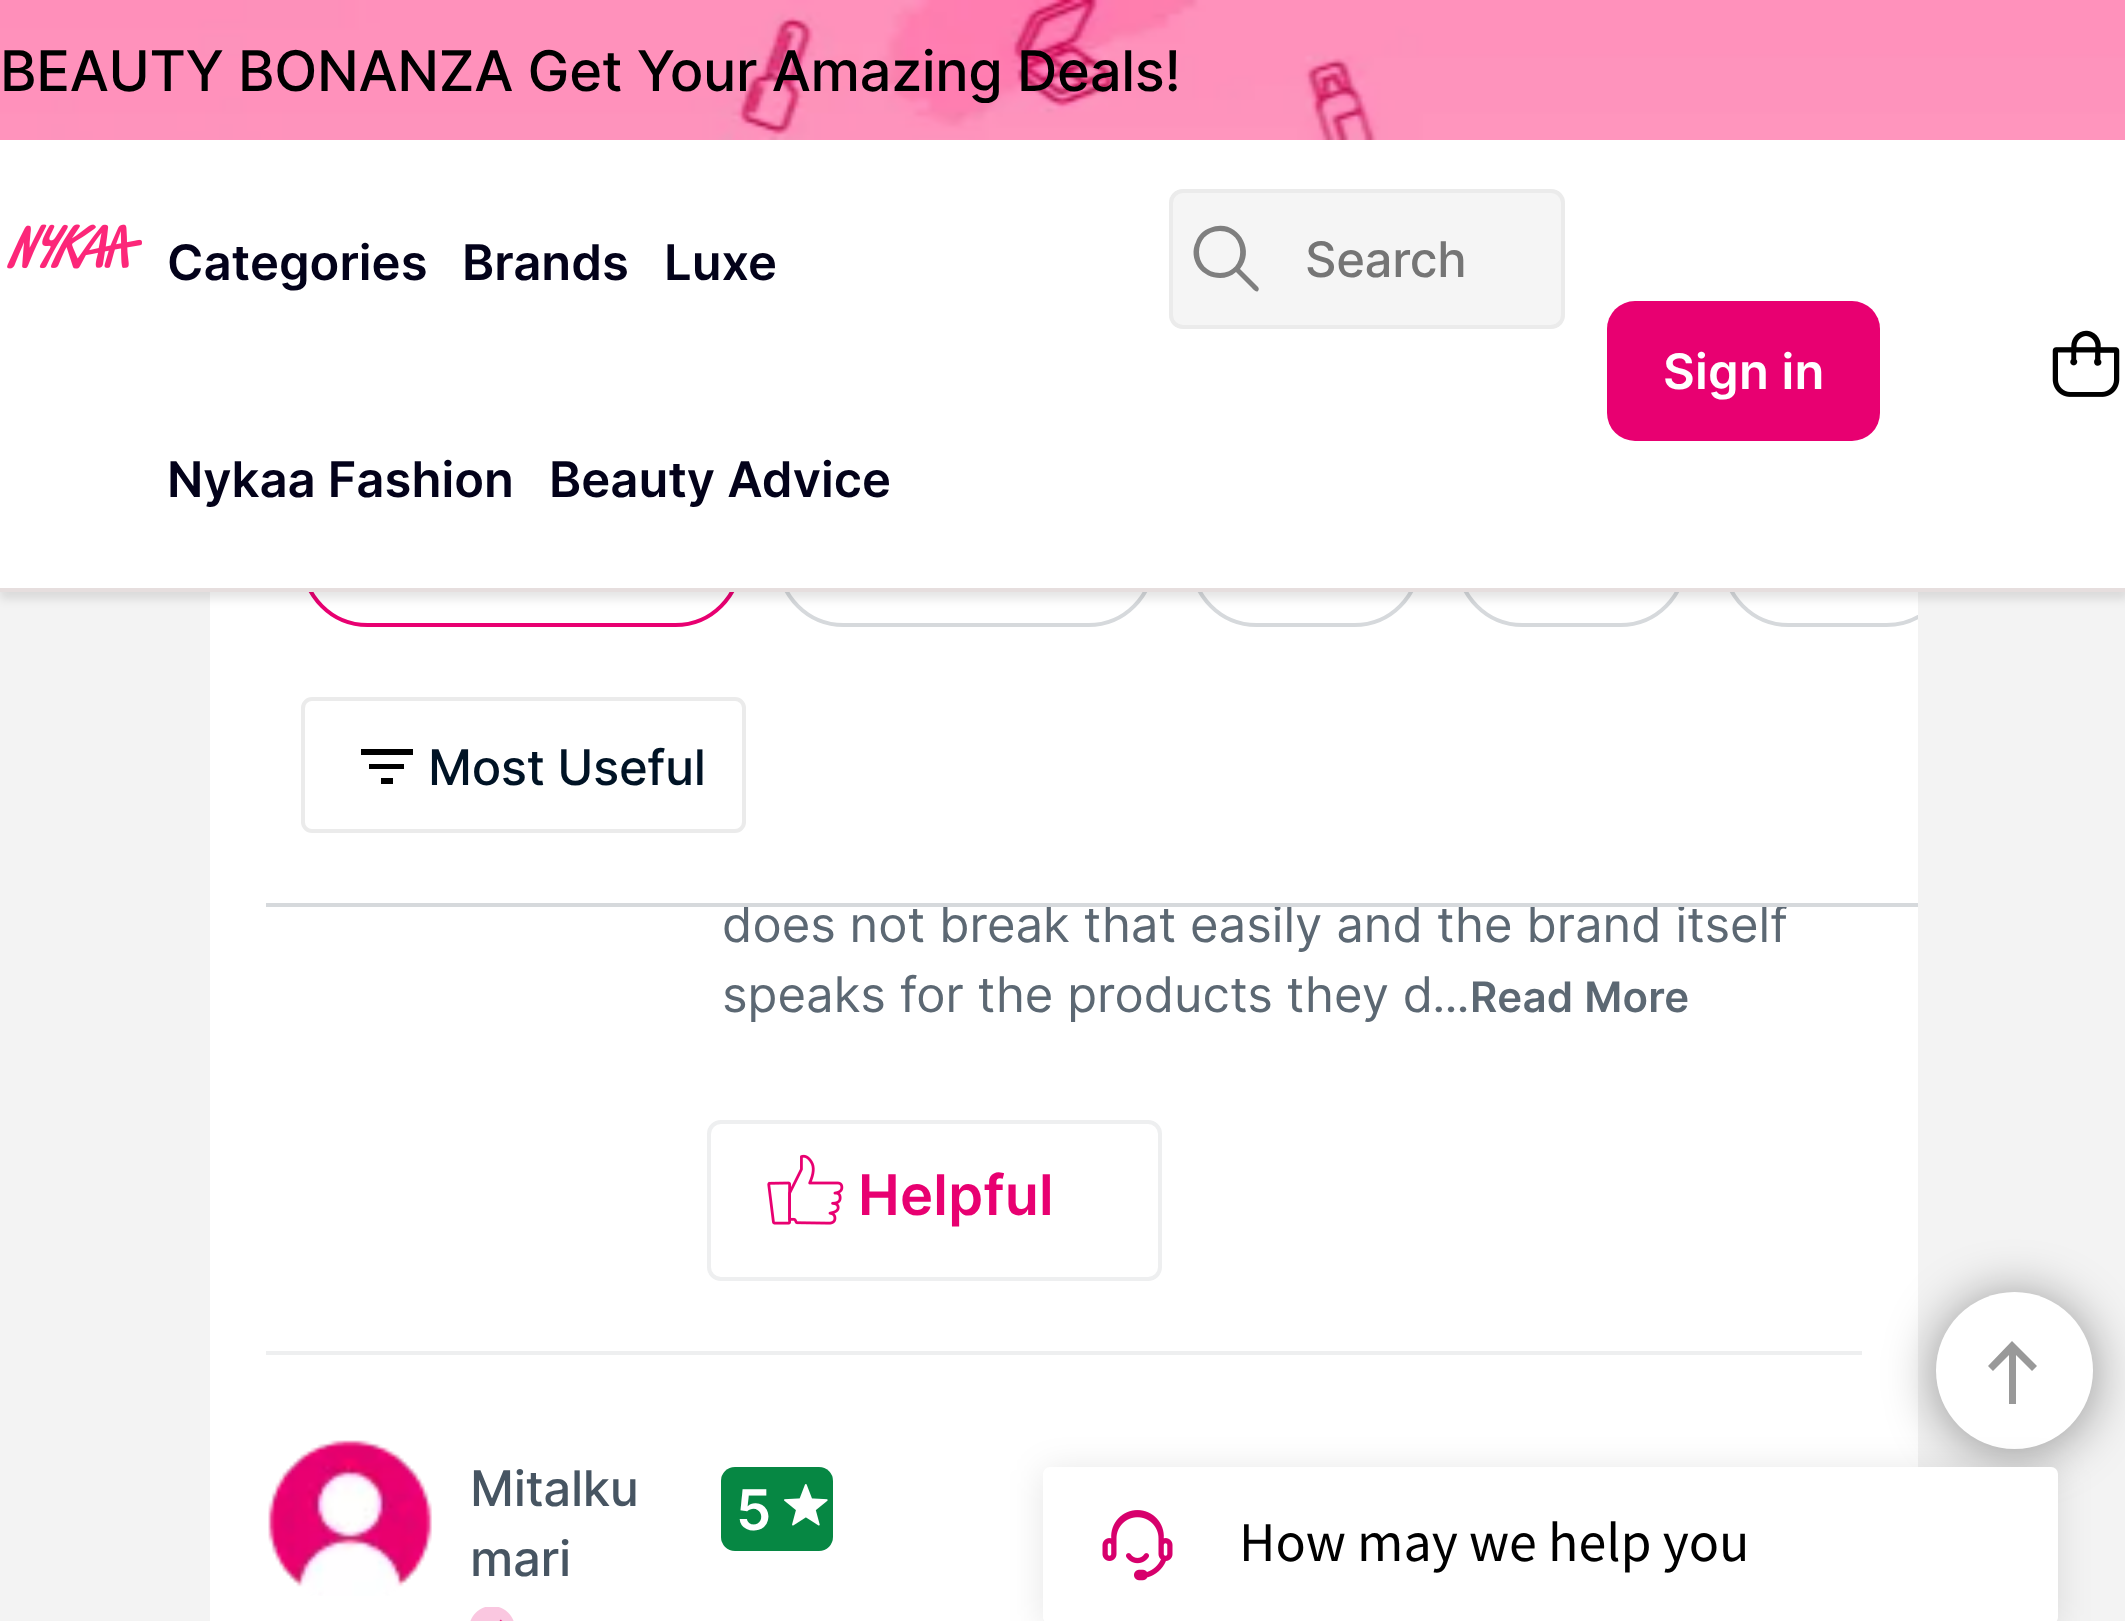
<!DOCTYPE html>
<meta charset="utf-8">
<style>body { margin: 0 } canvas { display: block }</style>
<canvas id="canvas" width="2125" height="1621"></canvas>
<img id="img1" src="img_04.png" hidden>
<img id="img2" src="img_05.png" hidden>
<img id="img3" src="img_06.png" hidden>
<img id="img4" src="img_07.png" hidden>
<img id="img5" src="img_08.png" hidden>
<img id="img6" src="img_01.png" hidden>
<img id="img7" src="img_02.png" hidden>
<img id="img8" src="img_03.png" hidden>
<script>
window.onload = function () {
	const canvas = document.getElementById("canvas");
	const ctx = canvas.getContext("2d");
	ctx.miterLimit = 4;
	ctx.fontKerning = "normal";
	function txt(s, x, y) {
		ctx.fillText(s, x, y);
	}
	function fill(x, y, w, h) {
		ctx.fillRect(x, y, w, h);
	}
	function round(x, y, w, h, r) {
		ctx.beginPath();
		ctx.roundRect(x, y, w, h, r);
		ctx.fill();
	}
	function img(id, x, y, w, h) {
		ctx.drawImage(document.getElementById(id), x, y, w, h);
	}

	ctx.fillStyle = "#F3F3F3";
	fill(0, 0, 2125, 1621);
	ctx.fillStyle = "#FFFFFF";
	fill(210, 907, 1708, 714);
	ctx.fillStyle = "#EEEFF0";
	fill(266, 1351, 1596, 4);
	ctx.beginPath();
	ctx.roundRect(709, 1122, 451, 157, 12);
	ctx.strokeStyle = "#EEEFF0";
	ctx.lineWidth = 4;
	ctx.stroke();
	img("img1", 767, 1154, 77, 71);
	img("img2", 268, 1440, 164, 156);
	img("img3", 470, 1607, 44, 14);
	ctx.fillStyle = "#068743";
	round(721, 1467, 112, 84, 14);
	img("img4", 784, 1484, 44, 42);
	ctx.fillStyle = "rgba(0, 0, 0, 0.4)";
	ctx.filter = "blur(26px)";
	ctx.beginPath();
	ctx.roundRect(1936, 1295, 157, 158, 78.5);
	ctx.fill();
	ctx.filter = "none";
	ctx.fillStyle = "#FFFFFF";
	ctx.beginPath();
	ctx.arc(2014.5, 1370.5, 78.5, 0, Math.PI * 2);
	ctx.fill();
	ctx.fillStyle = "#999999";
	ctx.beginPath();
	ctx.moveTo(2016, 1404);
	ctx.lineTo(2016, 1355);
	ctx.lineTo(2032, 1371);
	ctx.lineTo(2037, 1366);
	ctx.lineTo(2012, 1341);
	ctx.lineTo(1988, 1366);
	ctx.lineTo(1993, 1371);
	ctx.lineTo(2009, 1355);
	ctx.lineTo(2009, 1404);
	ctx.closePath();
	ctx.fill("evenodd");
	ctx.fillStyle = "rgba(0, 0, 0, 0.1)";
	ctx.filter = "blur(17.5px)";
	ctx.beginPath();
	ctx.roundRect(1043, 1470, 1015, 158, 7);
	ctx.fill();
	ctx.filter = "none";
	ctx.fillStyle = "#FFFFFF";
	round(1043, 1467, 1015, 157, 7);
	img("img5", 1102, 1510, 71, 71);
	ctx.font = "49px Inter";
	ctx.fillStyle = "#5C6873";
	txt("does not break that easily and the brand itself", 722, 942);
	ctx.fillStyle = "#FFFFFF";
	fill(210, 592, 1708, 315);
	ctx.save();
	ctx.beginPath();
	ctx.rect(266, 466, 1652, 189);
	ctx.clip();
	ctx.beginPath();
	ctx.roundRect(1724, 496, 227, 129, 64.5);
	ctx.strokeStyle = "#D6D9DC";
	ctx.stroke();
	ctx.restore();
	ctx.beginPath();
	ctx.roundRect(1458, 496, 227, 129, 64.5);
	ctx.strokeStyle = "#D6D9DC";
	ctx.stroke();
	ctx.beginPath();
	ctx.roundRect(1192, 496, 227, 129, 64.5);
	ctx.stroke();
	ctx.beginPath();
	ctx.roundRect(779, 496, 374, 129, 64.5);
	ctx.stroke();
	ctx.beginPath();
	ctx.roundRect(303, 496, 437, 129, 64.5);
	ctx.strokeStyle = "#E80071";
	ctx.stroke();
	ctx.fillStyle = "rgba(0, 0, 0, 0.1)";
	ctx.filter = "blur(5px)";
	ctx.beginPath();
	ctx.rect(0, 7, 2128, 592);
	ctx.fill();
	ctx.filter = "none";
	img("img6", 0, 0, 2125, 140);
	ctx.letterSpacing = "-0.35px";
	ctx.font = "500 56px Inter";
	ctx.fillStyle = "#000000";
	txt("BEAUTY BONANZA Get Your Amazing Deals!", 0, 91);
	ctx.fillStyle = "#FFFFFF";
	fill(0, 140, 2125, 448);
	ctx.fillStyle = "#F5F5F5";
	round(1169, 189, 396, 140, 14);
	ctx.beginPath();
	ctx.roundRect(1171, 191, 392, 136, 12);
	ctx.strokeStyle = "rgba(151, 151, 151, 0.1)";
	ctx.stroke();
	ctx.fillStyle = "#7F7F7F";
	ctx.beginPath();
	ctx.moveTo(1258, 287);
	ctx.lineTo(1240, 269);
	ctx.bezierCurveTo(1257, 248, 1235, 217, 1210, 228);
	ctx.bezierCurveTo(1203, 230, 1198, 236, 1196, 242);
	ctx.bezierCurveTo(1192, 250, 1193, 259, 1198, 267);
	ctx.bezierCurveTo(1207, 279, 1225, 282, 1236, 272);
	ctx.lineTo(1252, 288);
	ctx.bezierCurveTo(1253, 289, 1256, 293, 1258, 291);
	ctx.bezierCurveTo(1259, 290, 1259, 288, 1258, 287);
	ctx.closePath();
	ctx.moveTo(1220, 273);
	ctx.bezierCurveTo(1192, 273, 1192, 231, 1220, 231);
	ctx.bezierCurveTo(1247, 231, 1247, 273, 1220, 273);
	ctx.closePath();
	ctx.fill();
	ctx.font = "500 49px Inter";
	ctx.fillStyle = "#757575";
	txt("Search", 1305, 277);
	ctx.letterSpacing = "0px";
	ctx.font = "600 49px Inter";
	ctx.fillStyle = "#03021A";
	txt("Beauty Advice", 549, 497);
	txt("Nykaa Fashion", 167, 497);
	txt("Luxe", 664, 280);
	txt("Brands", 462, 280);
	txt("Categories", 167, 280);
	img("img7", 7, 224, 135, 45);
	img("img8", 2052, 330, 68, 67);
	ctx.fillStyle = "#E80071";
	round(1607, 301, 273, 140, 28);
	ctx.letterSpacing = "0.25px";
	ctx.fillStyle = "#FFFFFF";
	txt("Sign in", 1663, 389);
	ctx.fillStyle = "#E6DEDE";
	fill(0, 588, 2125, 4);
	ctx.beginPath();
	ctx.roundRect(303, 699, 441, 132, 9);
	ctx.strokeStyle = "#EBEBEB";
	ctx.stroke();
	ctx.save();
	ctx.beginPath();
	ctx.rect(361, 749, 52, 35);
	ctx.clip();
	ctx.fillStyle = "#000000";
	ctx.beginPath();
	ctx.moveTo(381, 784);
	ctx.lineTo(393, 784);
	ctx.lineTo(393, 778);
	ctx.lineTo(381, 778);
	ctx.closePath();
	ctx.moveTo(360, 749);
	ctx.lineTo(360, 755);
	ctx.lineTo(413, 755);
	ctx.lineTo(413, 749);
	ctx.closePath();
	ctx.moveTo(369, 769);
	ctx.lineTo(404, 769);
	ctx.lineTo(404, 764);
	ctx.lineTo(369, 764);
	ctx.closePath();
	ctx.fill();
	ctx.restore();
	ctx.letterSpacing = "-0.35px";
	ctx.font = "500 49px Inter";
	ctx.fillStyle = "#001325";
	txt("Most Useful", 428, 785);
	ctx.fillStyle = "#D6D9DC";
	fill(266, 903, 1652, 4);
	ctx.letterSpacing = "0px";
	ctx.font = "49px Inter";
	ctx.fillStyle = "#5C6873";
	txt("speaks for the products they d", 722, 1012);
	ctx.letterSpacing = "0.25px";
	ctx.font = "600 42px Roboto";
	txt("...", 1433, 1012);
	ctx.font = "600 42px Inter";
	txt("Read More", 1470, 1012);
	ctx.font = "600 56px Inter";
	ctx.fillStyle = "#E80071";
	txt("Helpful", 858, 1215);
	ctx.letterSpacing = "-0.35px";
	ctx.font = "500 49px Inter";
	ctx.fillStyle = "#475562";
	txt("Mitalku", 470, 1506);
	txt("mari", 470, 1576);
	ctx.font = "600 56px Inter";
	ctx.fillStyle = "#FFFFFF";
	txt("5", 736, 1530);
	ctx.letterSpacing = "0px";
	ctx.font = "56px Source Sans Pro";
	ctx.fillStyle = "#000000";
	txt("How may we help you", 1239, 1561);
};
</script>
